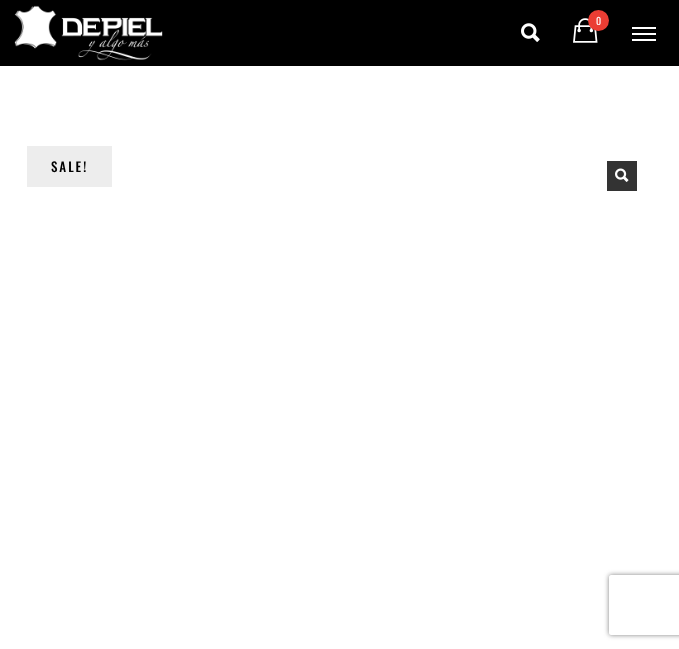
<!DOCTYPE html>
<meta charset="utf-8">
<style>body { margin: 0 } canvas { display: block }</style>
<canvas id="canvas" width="679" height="649"></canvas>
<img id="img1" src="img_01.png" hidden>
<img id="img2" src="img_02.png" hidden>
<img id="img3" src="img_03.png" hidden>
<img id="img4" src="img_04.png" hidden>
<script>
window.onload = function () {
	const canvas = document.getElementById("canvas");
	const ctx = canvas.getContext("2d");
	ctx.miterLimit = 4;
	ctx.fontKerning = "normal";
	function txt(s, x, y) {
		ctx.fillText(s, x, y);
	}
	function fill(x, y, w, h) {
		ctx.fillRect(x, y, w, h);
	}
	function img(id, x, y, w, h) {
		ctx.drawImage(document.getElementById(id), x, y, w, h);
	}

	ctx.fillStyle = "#000000";
	fill(0, 0, 679, 649);
	img("img1", 14, 5, 149, 56);
	img("img2", 573, 18, 25, 25);
	ctx.fillStyle = "#EB3D33";
	ctx.beginPath();
	ctx.arc(598.5, 20.5, 10.5, 0, Math.PI * 2);
	ctx.fill();
	img("img3", 521, 23, 19, 19);
	ctx.fillStyle = "#FFFFFF";
	fill(632, 27, 24, 2);
	fill(632, 33, 24, 2);
	fill(632, 39, 24, 2);
	fill(0, 66, 679, 583);
	ctx.fillStyle = "#EDEDED";
	fill(27, 146, 85, 41);
	ctx.fillStyle = "#333333";
	fill(607, 161, 30, 30);
	img("img4", 615, 168, 14, 14);
	ctx.save();
	ctx.beginPath();
	ctx.moveTo(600, 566);
	ctx.lineTo(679, 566);
	ctx.lineTo(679, 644);
	ctx.lineTo(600, 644);
	ctx.closePath();
	ctx.moveTo(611, 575);
	ctx.lineTo(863, 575);
	ctx.bezierCurveTo(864, 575, 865, 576, 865, 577);
	ctx.lineTo(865, 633);
	ctx.bezierCurveTo(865, 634, 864, 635, 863, 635);
	ctx.lineTo(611, 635);
	ctx.bezierCurveTo(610, 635, 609, 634, 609, 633);
	ctx.lineTo(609, 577);
	ctx.bezierCurveTo(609, 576, 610, 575, 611, 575);
	ctx.closePath();
	ctx.clip("evenodd");
	ctx.fillStyle = "#808080";
	ctx.filter = "blur(2.5px)";
	ctx.beginPath();
	ctx.roundRect(609, 575, 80, 60, 2);
	ctx.fill();
	ctx.filter = "none";
	ctx.restore();
	ctx.font = "10px Oswald";
	ctx.fillStyle = "#FFFFFF";
	txt("0", 596, 25);
	ctx.letterSpacing = "2px";
	ctx.font = "500 13px Oswald";
	ctx.fillStyle = "#000000";
	txt("SALE!", 51, 172);
};
</script>
